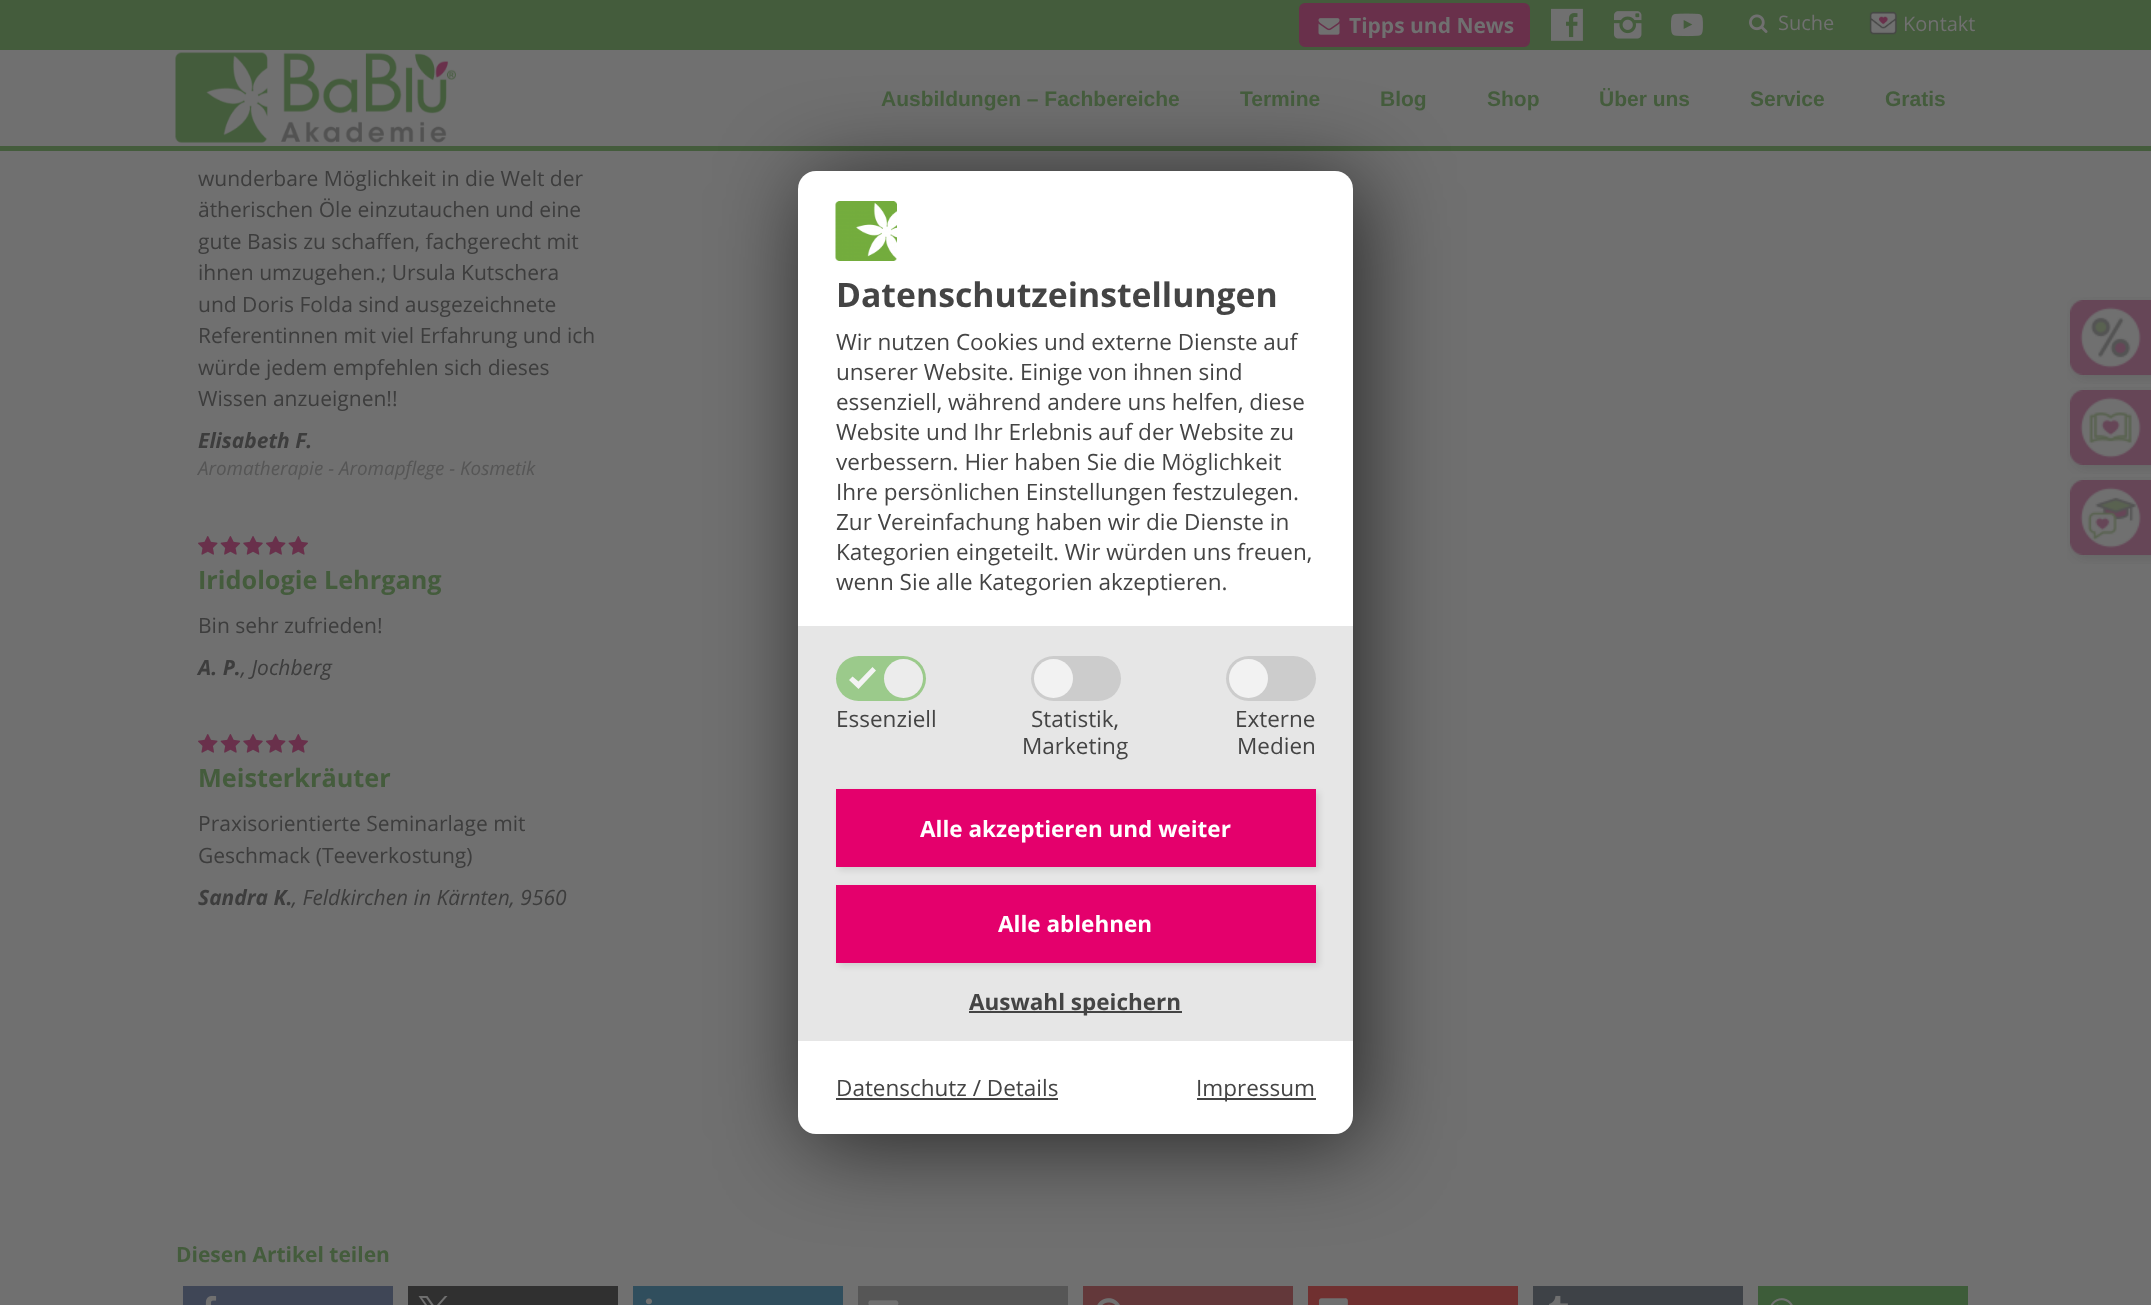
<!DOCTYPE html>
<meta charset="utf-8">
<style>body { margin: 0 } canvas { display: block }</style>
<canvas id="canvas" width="2151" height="1305"></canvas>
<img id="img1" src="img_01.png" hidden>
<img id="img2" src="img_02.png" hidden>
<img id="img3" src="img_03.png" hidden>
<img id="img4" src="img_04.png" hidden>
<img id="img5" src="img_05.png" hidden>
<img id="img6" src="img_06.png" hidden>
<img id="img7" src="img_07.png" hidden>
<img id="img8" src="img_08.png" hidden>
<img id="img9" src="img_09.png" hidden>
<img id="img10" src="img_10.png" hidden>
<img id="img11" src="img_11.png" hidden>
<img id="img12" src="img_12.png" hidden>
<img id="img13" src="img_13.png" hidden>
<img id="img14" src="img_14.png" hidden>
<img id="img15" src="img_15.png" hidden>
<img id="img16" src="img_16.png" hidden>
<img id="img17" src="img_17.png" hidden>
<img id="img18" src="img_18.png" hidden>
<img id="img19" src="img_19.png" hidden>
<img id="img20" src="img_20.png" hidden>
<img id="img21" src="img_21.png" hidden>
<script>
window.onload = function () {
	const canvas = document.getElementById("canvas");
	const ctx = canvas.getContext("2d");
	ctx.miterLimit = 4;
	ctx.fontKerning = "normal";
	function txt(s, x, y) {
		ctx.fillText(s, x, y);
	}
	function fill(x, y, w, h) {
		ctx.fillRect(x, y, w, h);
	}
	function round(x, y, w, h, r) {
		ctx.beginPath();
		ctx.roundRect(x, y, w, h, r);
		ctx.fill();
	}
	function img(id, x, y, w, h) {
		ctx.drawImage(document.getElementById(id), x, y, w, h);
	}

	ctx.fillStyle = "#707070";
	fill(0, 0, 2151, 1305);
	ctx.fillStyle = "#445C3C";
	fill(0, 146, 2151, 5);
	fill(0, 0, 2151, 50);
	ctx.fillStyle = "#69304B";
	ctx.beginPath();
	ctx.roundRect(1300.5, 4.5, 228, 41, 4.5);
	ctx.fill();
	ctx.strokeStyle = "#69304B";
	ctx.lineWidth = 3;
	ctx.stroke();
	img("img1", 1318, 18, 22, 17);
	img("img2", 1551, 8, 32, 33);
	img("img3", 1614, 11, 28, 28);
	img("img4", 1671, 13, 32, 24);
	img("img5", 1749, 14, 19, 19);
	img("img6", 1869, 11, 28, 24);
	img("img7", 175, 52, 281, 91);
	img("img8", 198, 536, 110, 19);
	img("img9", 198, 536, 110, 19);
	img("img8", 198, 734, 110, 19);
	img("img9", 198, 734, 110, 19);
	ctx.fillStyle = "#3F4656";
	fill(183, 1286, 210, 19);
	img("img10", 205, 1295, 12, 10);
	ctx.fillStyle = "#303030";
	fill(408, 1286, 210, 19);
	img("img11", 418, 1296, 30, 9);
	ctx.fillStyle = "#304E5D";
	fill(633, 1286, 210, 19);
	img("img12", 645, 1298, 7, 7);
	ctx.fillStyle = "#565656";
	fill(858, 1286, 210, 19);
	img("img13", 868, 1300, 31, 5);
	ctx.fillStyle = "#63383A";
	fill(1083, 1286, 210, 19);
	img("img14", 1097, 1298, 23, 7);
	ctx.fillStyle = "#703030";
	fill(1308, 1286, 210, 19);
	img("img15", 1318, 1298, 30, 7);
	ctx.fillStyle = "#3E4247";
	fill(1533, 1286, 210, 19);
	img("img16", 1549, 1295, 19, 10);
	ctx.fillStyle = "#3D5C39";
	fill(1758, 1286, 210, 19);
	img("img17", 1770, 1298, 23, 7);
	ctx.fillStyle = "rgba(0, 0, 0, 0.65)";
	ctx.filter = "blur(45px)";
	ctx.beginPath();
	ctx.roundRect(807, 180, 555, 963, 18);
	ctx.fill();
	ctx.filter = "none";
	ctx.fillStyle = "#FFFFFF";
	round(798, 171, 555, 963, 18);
	img("img18", 835, 201, 62, 60);
	ctx.fillStyle = "#E6E6E6";
	fill(798, 626, 555, 415);
	ctx.fillStyle = "#9BCA8B";
	round(836, 656, 90, 45, 22.5);
	ctx.fillStyle = "#F3F3F3";
	ctx.beginPath();
	ctx.moveTo(872.5, 667);
	ctx.lineTo(858.5, 681.5);
	ctx.lineTo(852.5, 676.5);
	ctx.lineTo(849, 680);
	ctx.lineTo(858.5, 689);
	ctx.lineTo(876, 670.5);
	ctx.closePath();
	ctx.fill();
	ctx.fillStyle = "#ECECEC";
	ctx.beginPath();
	ctx.arc(903.5, 678.5, 19.5, 0, Math.PI * 2);
	ctx.fill();
	ctx.fillStyle = "#CCCCCC";
	round(1031, 656, 90, 45, 22.5);
	ctx.fillStyle = "#F2F2F2";
	ctx.beginPath();
	ctx.arc(1053.5, 678.5, 19.5, 0, Math.PI * 2);
	ctx.fill();
	ctx.fillStyle = "#CCCCCC";
	round(1226, 656, 90, 45, 22.5);
	ctx.fillStyle = "#F2F2F2";
	ctx.beginPath();
	ctx.arc(1248.5, 678.5, 19.5, 0, Math.PI * 2);
	ctx.fill();
	ctx.fillStyle = "rgba(0, 0, 0, 0.1)";
	ctx.filter = "blur(3px)";
	ctx.beginPath();
	ctx.rect(839, 792, 480, 78);
	ctx.fill();
	ctx.filter = "none";
	ctx.fillStyle = "#E4006C";
	fill(836, 789, 480, 78);
	ctx.fillStyle = "rgba(0, 0, 0, 0.1)";
	ctx.filter = "blur(3px)";
	ctx.beginPath();
	ctx.rect(839, 888, 480, 78);
	ctx.fill();
	ctx.filter = "none";
	ctx.fillStyle = "#E4006C";
	fill(836, 885, 480, 78);
	ctx.fillStyle = "#444444";
	fill(969, 1011, 213, 2);
	fill(836, 1098, 222, 2);
	fill(1197, 1098, 119, 2);
	img("img19", 2067, 297, 84, 87);
	img("img20", 2067, 387, 84, 87);
	img("img21", 2067, 477, 84, 87);
	ctx.font = "bold 21px Open Sans";
	ctx.fillStyle = "#707070";
	txt("Tipps und News", 1349, 33);
	ctx.font = "20px Open Sans";
	txt("Suche", 1778, 30);
	txt("Kontakt", 1903, 31);
	ctx.font = "bold 21px Liberation Sans";
	ctx.fillStyle = "#445C3C";
	txt("Ausbildungen – Fachbereiche", 881, 106);
	txt("Termine", 1240, 106);
	txt("Blog", 1380, 106);
	txt("Shop", 1487, 106);
	txt("Über uns", 1599, 106);
	txt("Service", 1750, 106);
	txt("Gratis", 1885, 106);
	ctx.font = "21px Open Sans";
	ctx.fillStyle = "#3D3D3D";
	txt("wunderbare Möglichkeit in die Welt der", 198, 186);
	txt("ätherischen Öle einzutauchen und eine", 198, 217);
	txt("gute Basis zu schaffen, fachgerecht mit", 198, 249);
	txt("ihnen umzugehen.; Ursula Kutschera", 198, 280);
	txt("und Doris Folda sind ausgezeichnete", 198, 312);
	txt("Referentinnen mit viel Erfahrung und ich", 198, 343);
	txt("würde jedem empfehlen sich dieses", 198, 375);
	txt("Wissen anzueignen!!", 198, 406);
	ctx.font = "italic bold 21px Open Sans";
	txt("Elisabeth F.", 198, 448);
	ctx.font = "italic 18.9px Open Sans";
	ctx.fillStyle = "#565656";
	txt("Aromatherapie - Aromapflege - Kosmetik", 198, 475);
	ctx.font = "bold 25.25px Open Sans";
	ctx.fillStyle = "#445C3C";
	txt("Iridologie Lehrgang", 198, 589);
	ctx.font = "21px Open Sans";
	ctx.fillStyle = "#3D3D3D";
	txt("Bin sehr zufrieden!", 198, 633);
	ctx.font = "italic bold 21px Open Sans";
	txt("A. P.", 198, 675);
	ctx.font = "italic 21px Open Sans";
	txt(", Jochberg", 241, 675);
	ctx.font = "bold 25.25px Open Sans";
	ctx.fillStyle = "#445C3C";
	txt("Meisterkräuter", 198, 787);
	ctx.font = "21px Open Sans";
	ctx.fillStyle = "#3D3D3D";
	txt("Praxisorientierte Seminarlage mit", 198, 831);
	txt("Geschmack (Teeverkostung)", 198, 863);
	ctx.font = "italic bold 21px Open Sans";
	txt("Sandra K.", 198, 905);
	ctx.font = "italic 21px Open Sans";
	txt(", Feldkirchen in Kärnten, 9560", 292, 905);
	ctx.font = "bold 21px Open Sans";
	ctx.fillStyle = "#445C3C";
	txt("Diesen Artikel teilen", 176, 1262);
	ctx.font = "bold 33.75px Open Sans";
	ctx.fillStyle = "#444444";
	txt("Datenschutzeinstellungen", 836, 307);
	ctx.font = "22.5px Open Sans";
	txt("Wir nutzen Cookies und externe Dienste auf", 836, 350);
	txt("unserer Website. Einige von ihnen sind", 836, 380);
	txt("essenziell, während andere uns helfen, diese", 836, 410);
	txt("Website und Ihr Erlebnis auf der Website zu", 836, 440);
	txt("verbessern. Hier haben Sie die Möglichkeit", 836, 470);
	txt("Ihre persönlichen Einstellungen festzulegen.", 836, 500);
	txt("Zur Vereinfachung haben wir die Dienste in", 836, 530);
	txt("Kategorien eingeteilt. Wir würden uns freuen,", 836, 560);
	txt("wenn Sie alle Kategorien akzeptieren.", 836, 590);
	txt("Essenziell", 836, 727);
	txt("Statistik,", 1031, 727);
	txt("Marketing", 1022, 754);
	txt("Externe", 1235, 727);
	txt("Medien", 1237, 754);
	ctx.font = "bold 22.5px Open Sans";
	ctx.fillStyle = "#FFFFFF";
	txt("Alle akzeptieren und weiter", 920, 837);
	txt("Alle ablehnen", 998, 932);
	ctx.fillStyle = "#444444";
	txt("Auswahl speichern", 969, 1010);
	ctx.font = "22.5px Open Sans";
	txt("Datenschutz / Details", 836, 1096);
	txt("Impressum", 1196, 1096);
};
</script>
